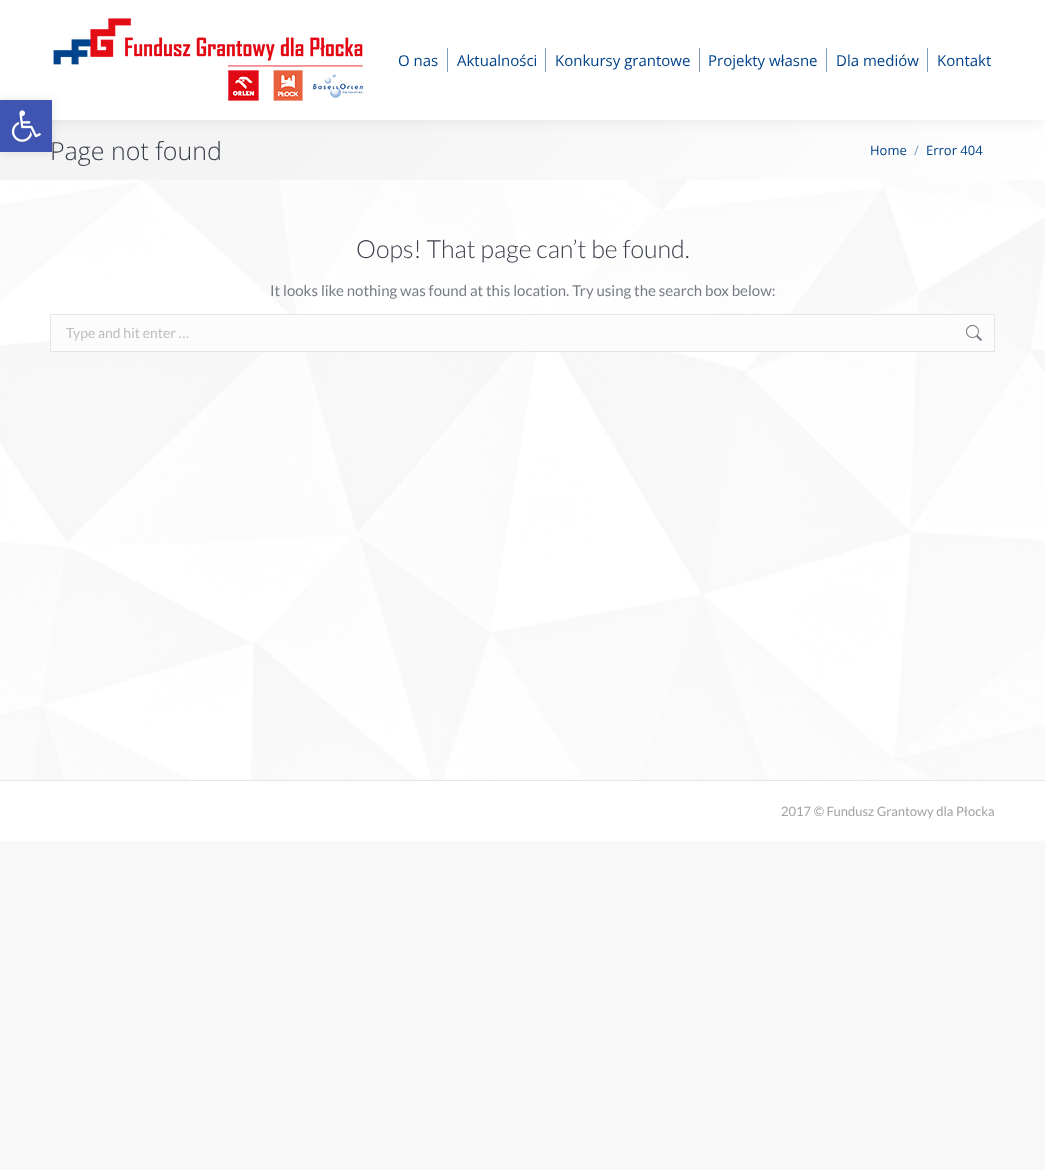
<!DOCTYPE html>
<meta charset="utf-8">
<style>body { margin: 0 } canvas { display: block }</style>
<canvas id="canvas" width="1045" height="1170"></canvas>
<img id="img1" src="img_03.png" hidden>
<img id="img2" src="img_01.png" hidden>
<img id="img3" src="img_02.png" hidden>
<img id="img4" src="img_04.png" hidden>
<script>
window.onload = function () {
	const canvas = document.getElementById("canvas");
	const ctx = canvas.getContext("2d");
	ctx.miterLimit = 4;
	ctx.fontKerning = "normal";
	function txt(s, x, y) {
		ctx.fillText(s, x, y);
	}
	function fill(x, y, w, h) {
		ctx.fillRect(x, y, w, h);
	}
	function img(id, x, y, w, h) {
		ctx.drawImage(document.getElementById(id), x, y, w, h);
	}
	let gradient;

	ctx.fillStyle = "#F8F8F9";
	fill(0, 0, 1045, 1170);
	gradient = ctx.createLinearGradient(246, -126, 799, 426);
	gradient.addColorStop(0.3, "#F4F4F4");
	gradient.addColorStop(1, "#FFFFFF");
	ctx.fillStyle = gradient;
	fill(0, 120, 1045, 60);
	ctx.fillStyle = "rgba(0, 0, 0, 0.07)";
	ctx.filter = "blur(7.5px)";
	ctx.beginPath();
	ctx.rect(-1, -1, 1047, 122);
	ctx.fill();
	ctx.filter = "none";
	ctx.fillStyle = "#FFFFFF";
	fill(0, 0, 1045, 120);
	img("img1", 53, 18, 310, 83);
	ctx.fillStyle = "rgba(0, 0, 0, 0.1)";
	ctx.filter = "blur(5px)";
	ctx.beginPath();
	ctx.rect(0, 100, 52, 52);
	ctx.fill();
	ctx.filter = "none";
	ctx.fillStyle = "#4054B2";
	fill(0, 100, 52, 52);
	img("img2", 11, 110, 30, 32);
	ctx.fillStyle = "#FFFFFF";
	fill(0, 180, 1045, 600);
	img("img3", 0, 180, 1045, 600);
	ctx.fillStyle = "#7D9FC3";
	fill(447, 48, 1, 24);
	fill(545, 48, 1, 24);
	fill(699, 48, 1, 24);
	fill(826, 48, 1, 24);
	fill(927, 48, 1, 24);
	ctx.fillStyle = "#FCFCFC";
	ctx.beginPath();
	ctx.rect(50.5, 314.5, 944, 37);
	ctx.fill();
	ctx.strokeStyle = "#E4E5E7";
	ctx.stroke();
	img("img4", 966, 325, 16, 16);
	ctx.fillStyle = "#FFFFFF";
	fill(0, 781, 1045, 60);
	ctx.fillStyle = "#E6E7E9";
	fill(0, 780, 1045, 1);
	ctx.font = "15px Open Sans";
	ctx.fillStyle = "#004289";
	txt("O nas", 398, 66);
	txt("Aktualności", 457, 66);
	txt("Konkursy grantowe", 555, 66);
	txt("Projekty własne", 708, 66);
	txt("Dla mediów", 836, 66);
	txt("Kontakt", 937, 66);
	ctx.font = "300 25px Open Sans";
	ctx.fillStyle = "#353D49";
	txt("Page not found", 50, 160);
	ctx.font = "13px Open Sans";
	ctx.fillStyle = "#004289";
	txt("Home", 870, 155);
	ctx.fillStyle = "#7FA0C3";
	txt("/", 914, 155);
	ctx.fillStyle = "#004289";
	txt("Error 404", 926, 155);
	ctx.font = "300 25px Lato";
	ctx.fillStyle = "#3B3F4A";
	txt("Oops! That page can’t be found.", 356, 258);
	ctx.font = "15px Lato";
	ctx.fillStyle = "#787D85";
	txt("It looks like nothing was found at this location. Try using the search box below:", 270, 296);
	ctx.font = "14px Lato";
	ctx.fillStyle = "#BABDC1";
	txt("Type and hit enter …", 66, 338);
	ctx.font = "13px Lato";
	ctx.fillStyle = "#A3A3A3";
	txt("2017 © Fundusz Grantowy dla Płocka", 781, 816);
};
</script>
